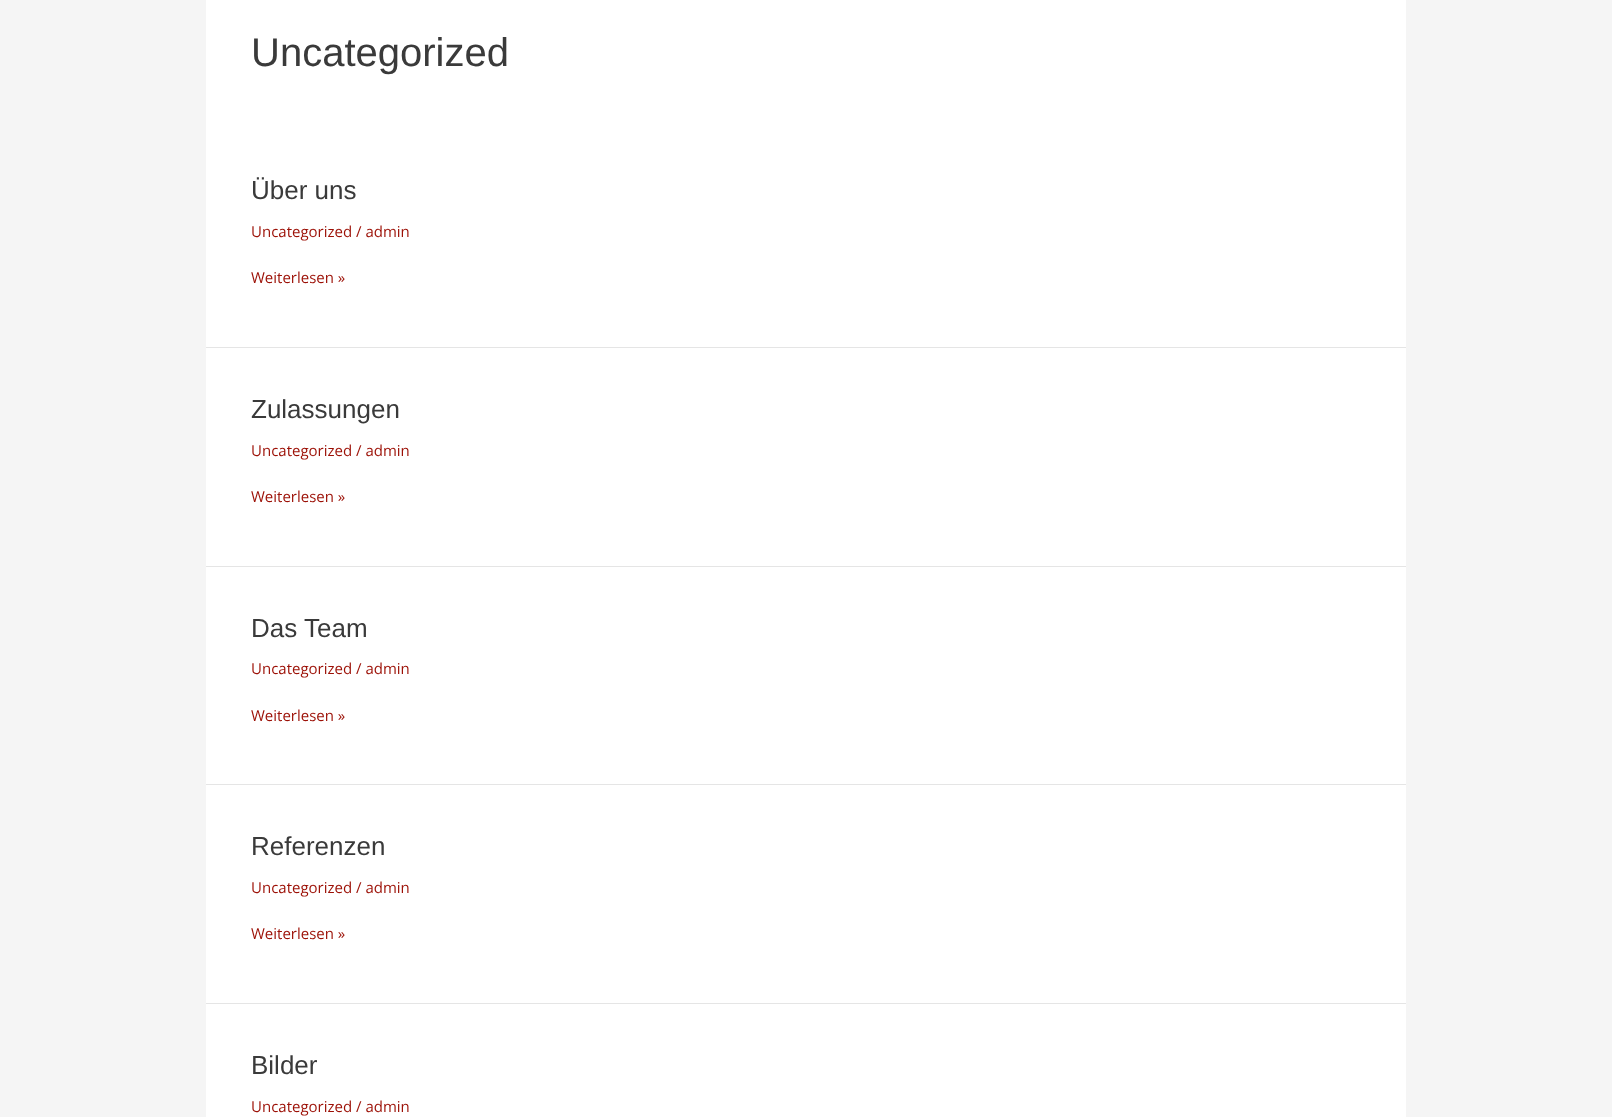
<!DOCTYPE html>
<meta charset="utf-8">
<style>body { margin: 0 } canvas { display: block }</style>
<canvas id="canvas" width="1612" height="1117"></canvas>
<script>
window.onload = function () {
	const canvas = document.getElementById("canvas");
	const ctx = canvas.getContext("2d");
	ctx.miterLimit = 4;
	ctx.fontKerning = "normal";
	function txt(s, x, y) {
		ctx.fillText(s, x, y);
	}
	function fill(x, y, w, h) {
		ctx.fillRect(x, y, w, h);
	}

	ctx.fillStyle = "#F5F5F5";
	fill(0, 0, 1612, 1117);
	ctx.fillStyle = "#FFFFFF";
	fill(206, 0, 1200, 347);
	ctx.fillStyle = "#E5E5E5";
	fill(206, 347, 1200, 1);
	ctx.fillStyle = "#FFFFFF";
	fill(206, 348, 1200, 218);
	ctx.fillStyle = "#E5E5E5";
	fill(206, 566, 1200, 1);
	ctx.fillStyle = "#FFFFFF";
	fill(206, 567, 1200, 217);
	ctx.fillStyle = "#E5E5E5";
	fill(206, 784, 1200, 1);
	ctx.fillStyle = "#FFFFFF";
	fill(206, 785, 1200, 218);
	ctx.fillStyle = "#E5E5E5";
	fill(206, 1003, 1200, 1);
	ctx.fillStyle = "#FFFFFF";
	fill(206, 1004, 1200, 113);
	ctx.font = "40px Liberation Sans";
	ctx.fillStyle = "#3A3A3A";
	txt("Uncategorized", 251, 66);
	ctx.font = "26px Liberation Sans";
	txt("Über uns", 251, 199);
	ctx.font = "15px Open Sans";
	ctx.fillStyle = "#9C1006";
	txt("Uncategorized / admin", 251, 237);
	txt("Weiterlesen »", 251, 283);
	ctx.font = "26px Liberation Sans";
	ctx.fillStyle = "#3A3A3A";
	txt("Zulassungen", 251, 418);
	ctx.font = "15px Open Sans";
	ctx.fillStyle = "#9C1006";
	txt("Uncategorized / admin", 251, 456);
	txt("Weiterlesen »", 251, 502);
	ctx.font = "26px Liberation Sans";
	ctx.fillStyle = "#3A3A3A";
	txt("Das Team", 251, 637);
	ctx.font = "15px Open Sans";
	ctx.fillStyle = "#9C1006";
	txt("Uncategorized / admin", 251, 674);
	txt("Weiterlesen »", 251, 721);
	ctx.font = "26px Liberation Sans";
	ctx.fillStyle = "#3A3A3A";
	txt("Referenzen", 251, 855);
	ctx.font = "15px Open Sans";
	ctx.fillStyle = "#9C1006";
	txt("Uncategorized / admin", 251, 893);
	txt("Weiterlesen »", 251, 939);
	ctx.font = "26px Liberation Sans";
	ctx.fillStyle = "#3A3A3A";
	txt("Bilder", 251, 1074);
	ctx.font = "15px Open Sans";
	ctx.fillStyle = "#9C1006";
	txt("Uncategorized / admin", 251, 1112);
};
</script>
